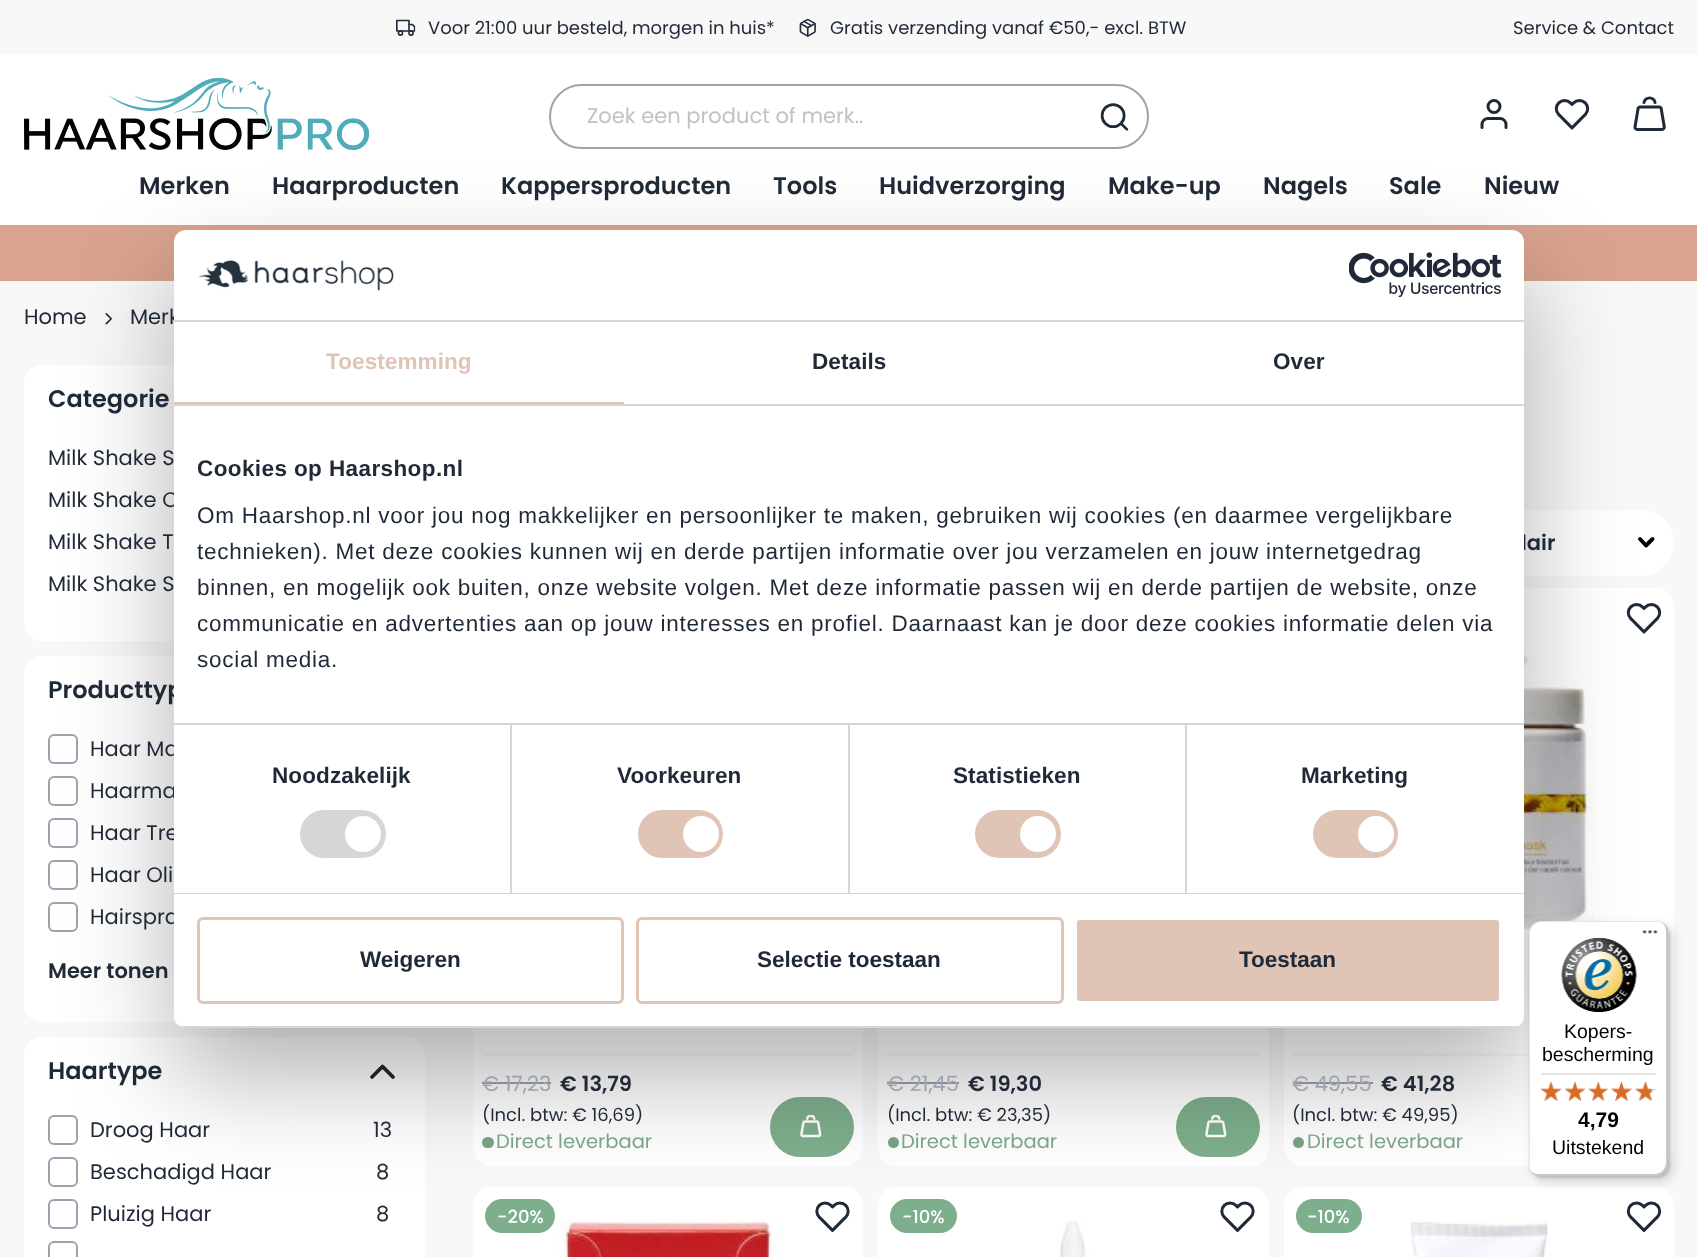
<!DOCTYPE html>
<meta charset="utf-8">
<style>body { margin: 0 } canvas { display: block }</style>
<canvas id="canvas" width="1697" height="1257"></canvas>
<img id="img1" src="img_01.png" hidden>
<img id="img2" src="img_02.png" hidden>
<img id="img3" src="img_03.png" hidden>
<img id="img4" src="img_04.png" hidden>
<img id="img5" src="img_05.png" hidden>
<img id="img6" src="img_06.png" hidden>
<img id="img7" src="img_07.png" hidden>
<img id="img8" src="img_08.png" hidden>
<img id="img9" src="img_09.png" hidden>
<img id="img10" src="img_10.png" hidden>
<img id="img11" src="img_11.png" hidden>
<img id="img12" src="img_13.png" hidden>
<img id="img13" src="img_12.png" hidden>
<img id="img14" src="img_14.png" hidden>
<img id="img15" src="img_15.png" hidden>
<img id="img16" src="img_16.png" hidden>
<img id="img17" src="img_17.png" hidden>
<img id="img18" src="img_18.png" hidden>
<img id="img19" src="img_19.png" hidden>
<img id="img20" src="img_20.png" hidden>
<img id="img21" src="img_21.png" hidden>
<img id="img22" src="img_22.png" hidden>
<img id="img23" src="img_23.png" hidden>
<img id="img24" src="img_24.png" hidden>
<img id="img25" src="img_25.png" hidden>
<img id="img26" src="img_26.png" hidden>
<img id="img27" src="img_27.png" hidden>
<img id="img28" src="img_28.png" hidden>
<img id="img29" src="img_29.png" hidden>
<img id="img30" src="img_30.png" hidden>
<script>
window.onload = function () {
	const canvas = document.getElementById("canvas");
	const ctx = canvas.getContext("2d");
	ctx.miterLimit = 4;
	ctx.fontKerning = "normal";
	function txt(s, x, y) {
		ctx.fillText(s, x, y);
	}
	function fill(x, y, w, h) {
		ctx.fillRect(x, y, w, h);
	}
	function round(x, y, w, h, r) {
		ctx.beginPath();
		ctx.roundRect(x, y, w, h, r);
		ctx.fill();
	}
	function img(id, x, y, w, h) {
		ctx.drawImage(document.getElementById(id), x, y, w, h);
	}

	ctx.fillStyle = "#FFFFFF";
	fill(0, 0, 1697, 1257);
	ctx.fillStyle = "#F8F8F8";
	fill(0, 0, 1697, 54);
	img("img1", 396, 19, 20, 17);
	img("img2", 799, 18, 17, 19);
	img("img3", 24, 78, 345, 72);
	ctx.beginPath();
	ctx.roundRect(550, 85, 598, 63, 31.5);
	ctx.strokeStyle = "#A3A3A3";
	ctx.lineWidth = 2;
	ctx.stroke();
	img("img4", 1100, 103, 29, 28);
	img("img5", 1480, 99, 28, 30);
	img("img6", 1554, 99, 36, 31);
	img("img7", 1633, 96, 33, 35);
	ctx.fillStyle = "#D9A38F";
	fill(0, 225, 1697, 56);
	ctx.fillStyle = "#F8F8F8";
	fill(0, 281, 1697, 976);
	img("img8", 105, 313, 7, 12);
	ctx.fillStyle = "#FFFFFF";
	round(24, 365, 401, 276, 18);
	round(24, 656, 401, 366, 18);
	ctx.beginPath();
	ctx.roundRect(49, 735, 28, 28, 5);
	ctx.strokeStyle = "#9CA3AF";
	ctx.stroke();
	ctx.beginPath();
	ctx.roundRect(49, 777, 28, 28, 5);
	ctx.stroke();
	ctx.beginPath();
	ctx.roundRect(49, 819, 28, 28, 5);
	ctx.stroke();
	ctx.beginPath();
	ctx.roundRect(49, 861, 28, 28, 5);
	ctx.stroke();
	ctx.beginPath();
	ctx.roundRect(49, 903, 28, 28, 5);
	ctx.stroke();
	round(24, 1037, 401, 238, 18);
	ctx.beginPath();
	ctx.moveTo(372, 1077);
	ctx.lineTo(382.5, 1066.5);
	ctx.lineTo(393, 1077);
	ctx.strokeStyle = "#1F2937";
	ctx.lineWidth = 3.8;
	ctx.lineCap = "round";
	ctx.lineJoin = "round";
	ctx.stroke();
	ctx.beginPath();
	ctx.roundRect(49, 1116, 28, 28, 5);
	ctx.strokeStyle = "#9CA3AF";
	ctx.lineWidth = 2;
	ctx.lineJoin = "miter";
	ctx.stroke();
	ctx.beginPath();
	ctx.roundRect(49, 1158, 28, 28, 5);
	ctx.stroke();
	ctx.beginPath();
	ctx.roundRect(49, 1200, 28, 28, 5);
	ctx.stroke();
	ctx.beginPath();
	ctx.roundRect(49, 1242, 28, 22, 5);
	ctx.stroke();
	round(1449, 510, 225, 66, 33);
	ctx.beginPath();
	ctx.moveTo(1640, 539);
	ctx.lineTo(1646, 545.5);
	ctx.lineTo(1652.5, 539);
	ctx.strokeStyle = "#000000";
	ctx.lineWidth = 3.9;
	ctx.lineJoin = "round";
	ctx.stroke();
	round(473, 588, 390, 578, 18);
	ctx.fillStyle = "#F8F8F8";
	fill(482, 1053, 372, 3);
	ctx.fillStyle = "#9CA3AF";
	fill(482, 1082, 69, 2);
	ctx.fillStyle = "#79A585";
	round(482, 1137, 12, 11, 5.5);
	ctx.fillStyle = "#7EAF8C";
	round(770, 1097, 84, 60, 30);
	img("img9", 800, 1114, 22, 24);
	ctx.fillStyle = "#FFFFFF";
	round(878, 588, 391, 578, 18);
	ctx.fillStyle = "#F8F8F8";
	fill(887, 1053, 373, 3);
	ctx.fillStyle = "#9CA3AF";
	fill(887, 1082, 72, 2);
	ctx.fillStyle = "#79A585";
	ctx.beginPath();
	ctx.arc(893.5, 1142.5, 5.5, 0, Math.PI * 2);
	ctx.fill();
	ctx.fillStyle = "#7EAF8C";
	round(1176, 1097, 84, 60, 30);
	img("img9", 1205, 1114, 22, 24);
	ctx.fillStyle = "#FFFFFF";
	round(1284, 588, 390, 578, 18);
	img("img10", 1626, 603, 36, 31);
	img("img11", 1524, 633, 71, 298);
	ctx.fillStyle = "#F8F8F8";
	fill(1293, 1053, 236, 3);
	ctx.fillStyle = "#9CA3AF";
	fill(1293, 1082, 80, 2);
	ctx.fillStyle = "#79A585";
	ctx.beginPath();
	ctx.arc(1298.5, 1142.5, 5.5, 0, Math.PI * 2);
	ctx.fill();
	ctx.fillStyle = "#FFFFFF";
	round(473, 1187, 390, 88, 18);
	img("img12", 552, 1219, 232, 38);
	ctx.fillStyle = "#7EAF8C";
	round(485, 1199, 70, 34, 17);
	img("img13", 815, 1201, 35, 31);
	ctx.fillStyle = "#FFFFFF";
	round(878, 1187, 391, 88, 18);
	ctx.fillStyle = "#7EAF8C";
	round(890, 1199, 67, 34, 17);
	img("img13", 1220, 1201, 35, 31);
	img("img14", 1059, 1220, 31, 37);
	ctx.fillStyle = "#FFFFFF";
	round(1284, 1187, 390, 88, 18);
	ctx.fillStyle = "#7EAF8C";
	round(1296, 1199, 66, 34, 17);
	img("img15", 1626, 1201, 36, 31);
	img("img16", 1410, 1219, 138, 38);
	ctx.fillStyle = "rgba(0, 0, 0, 0.3)";
	ctx.filter = "blur(51px)";
	ctx.beginPath();
	ctx.roundRect(174, 278, 1350, 798, 12);
	ctx.fill();
	ctx.filter = "none";
	ctx.fillStyle = "rgba(0, 0, 0, 0.15)";
	ctx.filter = "blur(1.5px)";
	ctx.beginPath();
	ctx.roundRect(1530, 923, 140, 255, 12);
	ctx.fill();
	ctx.filter = "none";
	ctx.font = "18px Poppins";
	ctx.fillStyle = "#1F2937";
	txt("Voor 21:00 uur besteld, morgen in huis*", 428, 34);
	txt("Gratis verzending vanaf €50,- excl. BTW", 830, 34);
	txt("Service & Contact", 1513, 34);
	ctx.font = "21px Poppins";
	ctx.fillStyle = "#C2C2C2";
	txt("Zoek een product of merk..", 587, 123);
	ctx.font = "600 24px Poppins";
	ctx.fillStyle = "#1F2937";
	txt("Merken", 139, 194);
	txt("Haarproducten", 272, 194);
	txt("Kappersproducten", 501, 194);
	txt("Tools", 773, 194);
	txt("Huidverzorging", 879, 194);
	txt("Make-up", 1108, 194);
	txt("Nagels", 1263, 194);
	txt("Sale", 1389, 194);
	txt("Nieuw", 1484, 194);
	ctx.font = "21px Poppins";
	txt("Home", 24, 324);
	txt("Merk", 130, 324);
	ctx.font = "600 24px Poppins";
	txt("Categorie", 48, 407);
	ctx.font = "21px Poppins";
	txt("Milk Shake S", 48, 465);
	txt("Milk Shake C", 48, 507);
	txt("Milk Shake T", 48, 549);
	txt("Milk Shake S", 48, 591);
	ctx.font = "600 24px Poppins";
	txt("Producttyp", 48, 698);
	ctx.font = "21px Poppins";
	txt("Haar Ma", 90, 756);
	txt("Haarma", 90, 798);
	txt("Haar Tre", 90, 840);
	txt("Haar Oli", 90, 882);
	txt("Hairspra", 90, 924);
	ctx.font = "600 21px Poppins";
	txt("Meer tonen", 48, 978);
	ctx.font = "600 24px Poppins";
	txt("Haartype", 48, 1079);
	ctx.font = "21px Poppins";
	txt("Droog Haar", 90, 1137);
	txt("13", 373, 1137);
	txt("Beschadigd Haar", 90, 1179);
	txt("8", 376, 1179);
	txt("Pluizig Haar", 90, 1221);
	txt("8", 376, 1221);
	ctx.font = "600 21px Poppins";
	txt("lair", 1521, 550);
	ctx.font = "21px Poppins";
	ctx.fillStyle = "#9CA3AF";
	txt("€ 17,23", 482, 1091);
	ctx.font = "600 21px Poppins";
	ctx.fillStyle = "#1F2937";
	txt("€ 13,79", 560, 1091);
	ctx.font = "18px Poppins";
	txt("(Incl. btw: € 16,69)", 482, 1121);
	ctx.font = "19.5px Poppins";
	ctx.fillStyle = "#79A585";
	txt("Direct leverbaar", 496, 1148);
	ctx.font = "21px Poppins";
	ctx.fillStyle = "#9CA3AF";
	txt("€ 21,45", 887, 1091);
	ctx.font = "600 21px Poppins";
	ctx.fillStyle = "#1F2937";
	txt("€ 19,30", 968, 1091);
	ctx.font = "18px Poppins";
	txt("(Incl. btw: € 23,35)", 887, 1121);
	ctx.font = "19.5px Poppins";
	ctx.fillStyle = "#79A585";
	txt("Direct leverbaar", 901, 1148);
	ctx.font = "21px Poppins";
	ctx.fillStyle = "#9CA3AF";
	txt("€ 49,55", 1292, 1091);
	ctx.font = "600 21px Poppins";
	ctx.fillStyle = "#1F2937";
	txt("€ 41,28", 1381, 1091);
	ctx.font = "18px Poppins";
	txt("(Incl. btw: € 49,95)", 1292, 1121);
	ctx.font = "19.5px Poppins";
	ctx.fillStyle = "#79A585";
	txt("Direct leverbaar", 1307, 1148);
	ctx.font = "500 18px Poppins";
	ctx.fillStyle = "#FFFFFF";
	txt("-20%", 497, 1223);
	txt("-10%", 902, 1223);
	txt("-10%", 1307, 1223);
	round(174, 230, 1350, 798, 12);
	ctx.fillStyle = "#D6D6D6";
	fill(174, 320, 1350, 2);
	img("img17", 198, 260, 196, 31);
	img("img18", 1349, 252, 153, 45);
	fill(174, 404, 1350, 2);
	ctx.fillStyle = "#E0C4B6";
	fill(174, 402, 450, 2);
	ctx.letterSpacing = "0.1px";
	ctx.font = "bold 22.5px Liberation Sans";
	txt("Toestemming", 326, 369);
	ctx.fillStyle = "#1F2937";
	txt("Details", 812, 369);
	txt("Over", 1273, 369);
	ctx.fillStyle = "#D6D6D6";
	fill(174, 723, 1350, 2);
	ctx.letterSpacing = "0.4px";
	ctx.fillStyle = "#1F2937";
	txt("Cookies op Haarshop.nl", 197, 476);
	ctx.letterSpacing = "0.75px";
	ctx.font = "22.5px Liberation Sans";
	txt("Om Haarshop.nl voor jou nog makkelijker en persoonlijker te maken, gebruiken wij cookies (en daarmee vergelijkbare", 197, 523);
	txt("technieken). Met deze cookies kunnen wij en derde partijen informatie over jou verzamelen en jouw internetgedrag", 197, 559);
	txt("binnen, en mogelijk ook buiten, onze website volgen. Met deze informatie passen wij en derde partijen de website, onze", 197, 595);
	txt("communicatie en advertenties aan op jouw interesses en profiel. Daarnaast kan je door deze cookies informatie delen via", 197, 631);
	txt("social media.", 197, 667);
	ctx.fillStyle = "#D6D6D6";
	fill(174, 893, 1350, 1);
	fill(510, 725, 2, 168);
	ctx.letterSpacing = "0.1px";
	ctx.font = "bold 22.5px Liberation Sans";
	ctx.fillStyle = "#1F2937";
	txt("Noodzakelijk", 272, 783);
	ctx.fillStyle = "#D6D6D6";
	round(300, 810, 86, 48, 24);
	ctx.fillStyle = "#FFFFFF";
	ctx.beginPath();
	ctx.arc(363, 834, 18, 0, Math.PI * 2);
	ctx.fill();
	ctx.fillStyle = "#D6D6D6";
	fill(848, 725, 2, 168);
	ctx.fillStyle = "#1F2937";
	txt("Voorkeuren", 617, 783);
	ctx.fillStyle = "#E0C4B6";
	round(638, 810, 85, 48, 24);
	ctx.fillStyle = "#FFFFFF";
	ctx.beginPath();
	ctx.arc(701, 834, 18, 0, Math.PI * 2);
	ctx.fill();
	ctx.fillStyle = "#D6D6D6";
	fill(1185, 725, 2, 168);
	ctx.fillStyle = "#1F2937";
	txt("Statistieken", 953, 783);
	ctx.fillStyle = "#E0C4B6";
	round(975, 810, 86, 48, 24);
	ctx.fillStyle = "#FFFFFF";
	ctx.beginPath();
	ctx.arc(1038, 834, 18, 0, Math.PI * 2);
	ctx.fill();
	ctx.fillStyle = "#1F2937";
	txt("Marketing", 1301, 783);
	ctx.fillStyle = "#E0C4B6";
	round(1313, 810, 85, 48, 24);
	ctx.fillStyle = "#FFFFFF";
	ctx.beginPath();
	ctx.arc(1376, 834, 18, 0, Math.PI * 2);
	ctx.fill();
	ctx.save();
	ctx.beginPath();
	ctx.roundRect(174, 230, 1350, 798, 12);
	ctx.clip();
	ctx.fillStyle = "#D6D6D6";
	fill(174, 1026, 1350, 2);
	ctx.restore();
	ctx.beginPath();
	ctx.roundRect(198.5, 918.5, 424, 84, 4.5);
	ctx.strokeStyle = "#E0C4B6";
	ctx.lineWidth = 3;
	ctx.lineJoin = "miter";
	ctx.stroke();
	ctx.letterSpacing = "0px";
	ctx.fillStyle = "#1F2937";
	txt("Weigeren", 360, 967);
	ctx.beginPath();
	ctx.roundRect(637.5, 918.5, 425, 84, 4.5);
	ctx.stroke();
	txt("Selectie toestaan", 757, 967);
	ctx.fillStyle = "#E0C4B6";
	ctx.beginPath();
	ctx.roundRect(1075.5, 918.5, 425, 84, 4.5);
	ctx.fill();
	ctx.strokeStyle = "#FFFFFF";
	ctx.stroke();
	ctx.fillStyle = "#1F2937";
	txt("Toestaan", 1239, 967);
	ctx.fillStyle = "rgba(0, 0, 0, 0.15)";
	ctx.filter = "blur(6px)";
	ctx.beginPath();
	ctx.roundRect(1533, 926, 140, 255, 12);
	ctx.fill();
	ctx.filter = "none";
	ctx.fillStyle = "#FFFFFF";
	round(1529, 921, 139, 255, 12);
	ctx.fillStyle = "rgba(0, 0, 0, 0.1)";
	ctx.beginPath();
	ctx.moveTo(1542, 922);
	ctx.lineTo(1658, 922);
	ctx.bezierCurveTo(1660, 922, 1662, 923, 1663, 924);
	ctx.bezierCurveTo(1661, 922, 1659, 921, 1656, 921);
	ctx.lineTo(1541, 921);
	ctx.bezierCurveTo(1534, 921, 1529, 926, 1529, 933);
	ctx.lineTo(1529, 1164);
	ctx.bezierCurveTo(1529, 1166, 1530, 1169, 1531, 1171);
	ctx.lineTo(1530, 1166);
	ctx.lineTo(1530, 934);
	ctx.bezierCurveTo(1530, 928, 1535, 922, 1542, 922);
	ctx.closePath();
	ctx.fill();
	ctx.fillStyle = "rgba(0, 0, 0, 0.2)";
	ctx.beginPath();
	ctx.moveTo(1532, 1172);
	ctx.bezierCurveTo(1534, 1174, 1537, 1176, 1541, 1176);
	ctx.lineTo(1656, 1176);
	ctx.bezierCurveTo(1663, 1176, 1668, 1171, 1668, 1164);
	ctx.lineTo(1668, 933);
	ctx.bezierCurveTo(1668, 928, 1665, 924, 1661, 922);
	ctx.bezierCurveTo(1664, 924, 1666, 928, 1666, 932);
	ctx.lineTo(1666, 1162);
	ctx.bezierCurveTo(1666, 1169, 1661, 1174, 1654, 1174);
	ctx.lineTo(1539, 1174);
	ctx.bezierCurveTo(1536, 1174, 1534, 1173, 1532, 1172);
	ctx.closePath();
	ctx.fill();
	ctx.fillStyle = "rgba(50, 50, 50, 0.2)";
	ctx.beginPath();
	ctx.moveTo(1533, 1173);
	ctx.bezierCurveTo(1535, 1175, 1538, 1176, 1541, 1176);
	ctx.lineTo(1656, 1176);
	ctx.bezierCurveTo(1663, 1176, 1668, 1171, 1668, 1164);
	ctx.lineTo(1668, 933);
	ctx.bezierCurveTo(1668, 930, 1667, 927, 1665, 925);
	ctx.bezierCurveTo(1666, 927, 1667, 929, 1667, 932);
	ctx.lineTo(1667, 1163);
	ctx.bezierCurveTo(1667, 1170, 1662, 1175, 1655, 1175);
	ctx.lineTo(1540, 1175);
	ctx.bezierCurveTo(1537, 1175, 1535, 1174, 1533, 1173);
	ctx.closePath();
	ctx.fill();
	ctx.fillStyle = "rgba(255, 255, 255, 0.3)";
	ctx.beginPath();
	ctx.moveTo(1533, 1173);
	ctx.bezierCurveTo(1535, 1175, 1538, 1176, 1541, 1176);
	ctx.lineTo(1656, 1176);
	ctx.bezierCurveTo(1663, 1176, 1668, 1171, 1668, 1164);
	ctx.lineTo(1668, 933);
	ctx.bezierCurveTo(1668, 929, 1666, 926, 1664, 924);
	ctx.bezierCurveTo(1666, 926, 1667, 929, 1667, 932);
	ctx.lineTo(1667, 1163);
	ctx.bezierCurveTo(1667, 1170, 1662, 1175, 1655, 1175);
	ctx.lineTo(1540, 1175);
	ctx.bezierCurveTo(1537, 1175, 1535, 1174, 1533, 1173);
	ctx.closePath();
	ctx.fill();
	img("img19", 1642, 930, 16, 4);
	img("img20", 1561, 938, 76, 75);
	ctx.font = "19.5px Liberation Sans";
	ctx.fillStyle = "#000000";
	txt("Kopers-", 1564, 1038);
	txt("bescherming", 1542, 1061);
	ctx.fillStyle = "#E5E5E5";
	fill(1541, 1073, 115, 2);
	img("img21", 1540, 1082, 22, 19);
	img("img22", 1565, 1081, 20, 20);
	img("img23", 1588, 1082, 20, 19);
	img("img24", 1611, 1081, 21, 20);
	img("img25", 1635, 1082, 21, 19);
	img("img26", 1540, 1081, 22, 20);
	img("img27", 1565, 1081, 20, 20);
	img("img28", 1588, 1081, 20, 20);
	img("img29", 1611, 1081, 21, 20);
	img("img30", 1635, 1081, 17, 20);
	ctx.font = "bold 21px Liberation Sans";
	ctx.fillStyle = "#000000";
	txt("4,79", 1578, 1127);
	ctx.font = "19.5px Liberation Sans";
	txt("Uitstekend", 1552, 1154);
};
</script>
